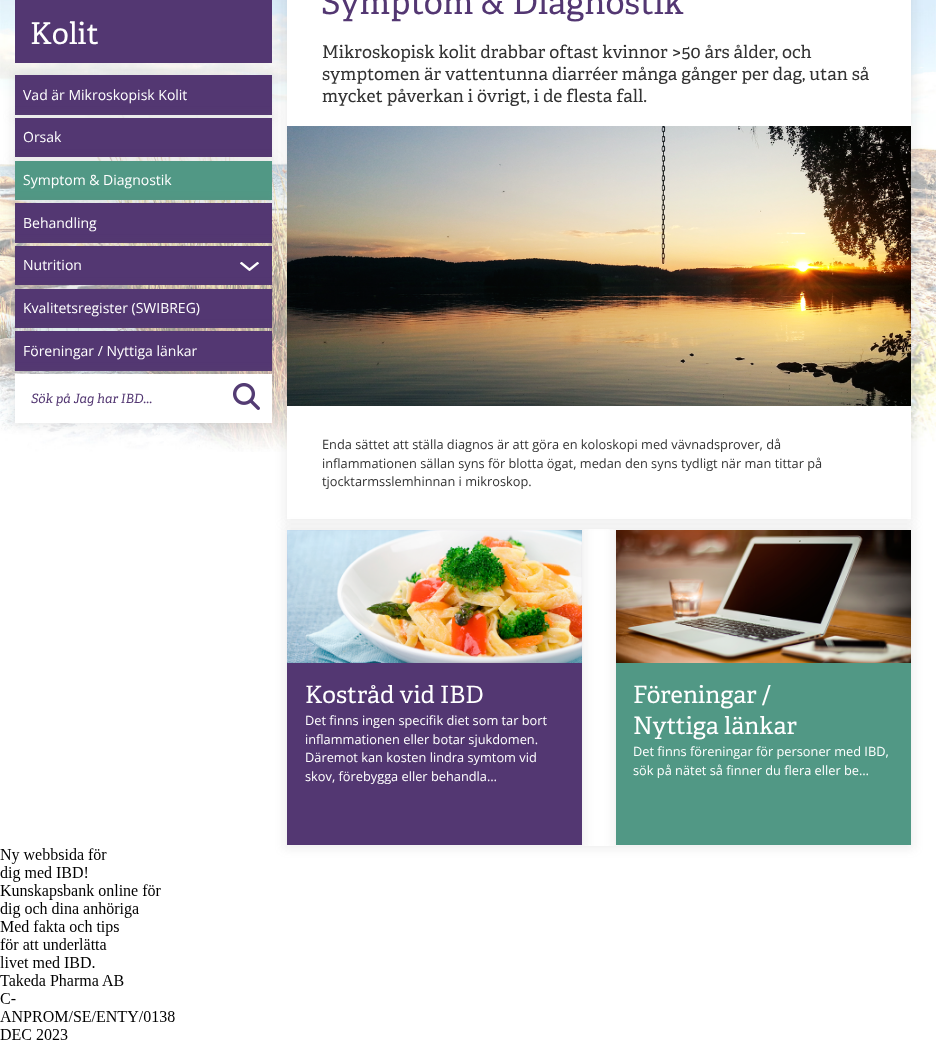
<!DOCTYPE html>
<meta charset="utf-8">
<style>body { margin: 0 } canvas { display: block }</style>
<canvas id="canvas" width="936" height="1042"></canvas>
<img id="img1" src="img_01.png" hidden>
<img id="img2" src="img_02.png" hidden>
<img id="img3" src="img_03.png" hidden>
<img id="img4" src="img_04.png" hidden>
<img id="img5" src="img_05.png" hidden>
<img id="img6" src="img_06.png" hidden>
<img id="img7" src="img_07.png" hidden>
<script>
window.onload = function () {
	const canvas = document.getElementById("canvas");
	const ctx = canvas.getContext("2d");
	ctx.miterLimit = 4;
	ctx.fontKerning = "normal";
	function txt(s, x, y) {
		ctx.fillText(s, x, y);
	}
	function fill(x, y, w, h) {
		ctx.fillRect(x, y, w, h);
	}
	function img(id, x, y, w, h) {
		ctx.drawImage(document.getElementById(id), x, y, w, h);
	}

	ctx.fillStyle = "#FFFFFF";
	fill(0, 0, 936, 1042);
	img("img1", 0, 0, 936, 452);
	ctx.fillStyle = "#533772";
	fill(15, 0, 257, 63);
	ctx.fillStyle = "rgba(117, 117, 117, 0.1)";
	ctx.filter = "blur(4px)";
	ctx.beginPath();
	ctx.rect(11, 71, 265, 48);
	ctx.fill();
	ctx.filter = "none";
	ctx.fillStyle = "#533772";
	fill(15, 75, 257, 40);
	ctx.fillStyle = "rgba(117, 117, 117, 0.1)";
	ctx.filter = "blur(4px)";
	ctx.beginPath();
	ctx.rect(11, 114, 265, 47);
	ctx.fill();
	ctx.filter = "none";
	ctx.fillStyle = "#533772";
	fill(15, 118, 257, 39);
	ctx.fillStyle = "rgba(117, 117, 117, 0.1)";
	ctx.filter = "blur(4px)";
	ctx.beginPath();
	ctx.rect(11, 157, 265, 47);
	ctx.fill();
	ctx.filter = "none";
	ctx.fillStyle = "#519885";
	fill(15, 161, 257, 39);
	ctx.fillStyle = "rgba(117, 117, 117, 0.1)";
	ctx.filter = "blur(4px)";
	ctx.beginPath();
	ctx.rect(11, 199, 265, 48);
	ctx.fill();
	ctx.filter = "none";
	ctx.fillStyle = "#533772";
	fill(15, 203, 257, 40);
	ctx.fillStyle = "rgba(117, 117, 117, 0.1)";
	ctx.filter = "blur(4px)";
	ctx.beginPath();
	ctx.rect(11, 242, 265, 47);
	ctx.fill();
	ctx.filter = "none";
	ctx.fillStyle = "#533772";
	fill(15, 246, 257, 39);
	img("img2", 240, 262, 19, 9);
	ctx.fillStyle = "rgba(117, 117, 117, 0.1)";
	ctx.filter = "blur(4px)";
	ctx.beginPath();
	ctx.rect(11, 285, 265, 47);
	ctx.fill();
	ctx.filter = "none";
	ctx.fillStyle = "#533772";
	fill(15, 289, 257, 39);
	ctx.fillStyle = "rgba(117, 117, 117, 0.1)";
	ctx.filter = "blur(4px)";
	ctx.beginPath();
	ctx.rect(11, 327, 265, 48);
	ctx.fill();
	ctx.filter = "none";
	ctx.fillStyle = "#533772";
	fill(15, 331, 257, 40);
	ctx.fillStyle = "rgba(117, 117, 117, 0.1)";
	ctx.filter = "blur(4px)";
	ctx.beginPath();
	ctx.rect(11, 370, 265, 57);
	ctx.fill();
	ctx.filter = "none";
	ctx.fillStyle = "#FFFFFF";
	fill(15, 374, 257, 49);
	img("img3", 233, 383, 27, 27);
	ctx.fillStyle = "rgba(117, 117, 117, 0.1)";
	ctx.filter = "blur(4px)";
	ctx.beginPath();
	ctx.rect(283, -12, 632, 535);
	ctx.fill();
	ctx.filter = "none";
	ctx.fillStyle = "#FFFFFF";
	fill(287, 0, 624, 519);
	img("img4", 287, 126, 624, 280);
	ctx.save();
	ctx.beginPath();
	ctx.moveTo(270, 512);
	ctx.lineTo(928, 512);
	ctx.lineTo(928, 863);
	ctx.lineTo(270, 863);
	ctx.closePath();
	ctx.moveTo(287, 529);
	ctx.lineTo(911, 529);
	ctx.lineTo(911, 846);
	ctx.lineTo(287, 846);
	ctx.closePath();
	ctx.clip("evenodd");
	ctx.fillStyle = "rgba(117, 117, 117, 0.1)";
	ctx.filter = "blur(4px)";
	ctx.beginPath();
	ctx.rect(283, 525, 632, 325);
	ctx.fill();
	ctx.filter = "none";
	ctx.restore();
	ctx.save();
	ctx.beginPath();
	ctx.rect(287, 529, 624, 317);
	ctx.clip();
	ctx.fillStyle = "rgba(117, 117, 117, 0.1)";
	ctx.filter = "blur(4px)";
	ctx.beginPath();
	ctx.rect(283, 526, 303, 323);
	ctx.fill();
	ctx.filter = "none";
	ctx.restore();
	ctx.fillStyle = "#533772";
	fill(287, 530, 295, 315);
	img("img5", 287, 530, 295, 133);
	ctx.save();
	ctx.beginPath();
	ctx.rect(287, 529, 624, 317);
	ctx.clip();
	ctx.fillStyle = "rgba(117, 117, 117, 0.1)";
	ctx.filter = "blur(4px)";
	ctx.beginPath();
	ctx.rect(612, 526, 303, 323);
	ctx.fill();
	ctx.filter = "none";
	ctx.restore();
	ctx.fillStyle = "#519885";
	fill(616, 663, 295, 182);
	img("img6", 616, 530, 295, 133);
	img("img7", 0, 848, 175, 192);
	ctx.font = "30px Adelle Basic";
	ctx.fillStyle = "#FFFFFF";
	txt("Kolit", 30, 44);
	ctx.font = "14px Open Sans";
	txt("Vad är Mikroskopisk Kolit", 23, 100);
	txt("Orsak", 23, 142);
	txt("Symptom & Diagnostik", 23, 185);
	txt("Behandling", 23, 228);
	txt("Nutrition", 23, 270);
	txt("Kvalitetsregister (SWIBREG)", 23, 313);
	txt("Föreningar / Nyttiga länkar", 23, 356);
	ctx.font = "italic 12.8px Adelle Basic";
	ctx.fillStyle = "#533772";
	txt("Sök på Jag har IBD...", 31, 403);
	ctx.font = "33.6px Adelle Basic";
	txt("Symptom & Diagnostik", 321, 14);
	ctx.font = "17.6px Adelle Basic";
	ctx.fillStyle = "#333333";
	txt("Mikroskopisk kolit drabbar oftast kvinnor >50 års ålder, och", 322, 58);
	txt("symptomen är vattentunna diarréer många gånger per dag, utan så", 322, 80);
	txt("mycket påverkan i övrigt, i de flesta fall.", 322, 102);
	ctx.font = "12.8px Open Sans";
	txt("Enda sättet att ställa diagnos är att göra en koloskopi med vävnadsprover, då", 322, 449);
	txt("inflammationen sällan syns för blotta ögat, medan den syns tydligt när man tittar på", 322, 468);
	txt("tjocktarmsslemhinnan i mikroskop.", 322, 486);
	ctx.font = "24px Adelle Basic";
	ctx.fillStyle = "#FFFFFF";
	txt("Kostråd vid IBD", 305, 703);
	ctx.font = "12.8px Open Sans";
	txt("Det finns ingen specifik diet som tar bort", 305, 725);
	txt("inflammationen eller botar sjukdomen.", 305, 744);
	txt("Däremot kan kosten lindra symtom vid", 305, 762);
	txt("skov, förebygga eller behandla…", 305, 781);
	ctx.font = "24px Adelle Basic";
	txt("Föreningar /", 633, 703);
	txt("Nyttiga länkar", 633, 734);
	ctx.font = "12.8px Open Sans";
	txt("Det finns föreningar för personer med IBD,", 633, 756);
	txt("sök på nätet så finner du flera eller be…", 633, 775);
};
</script>
